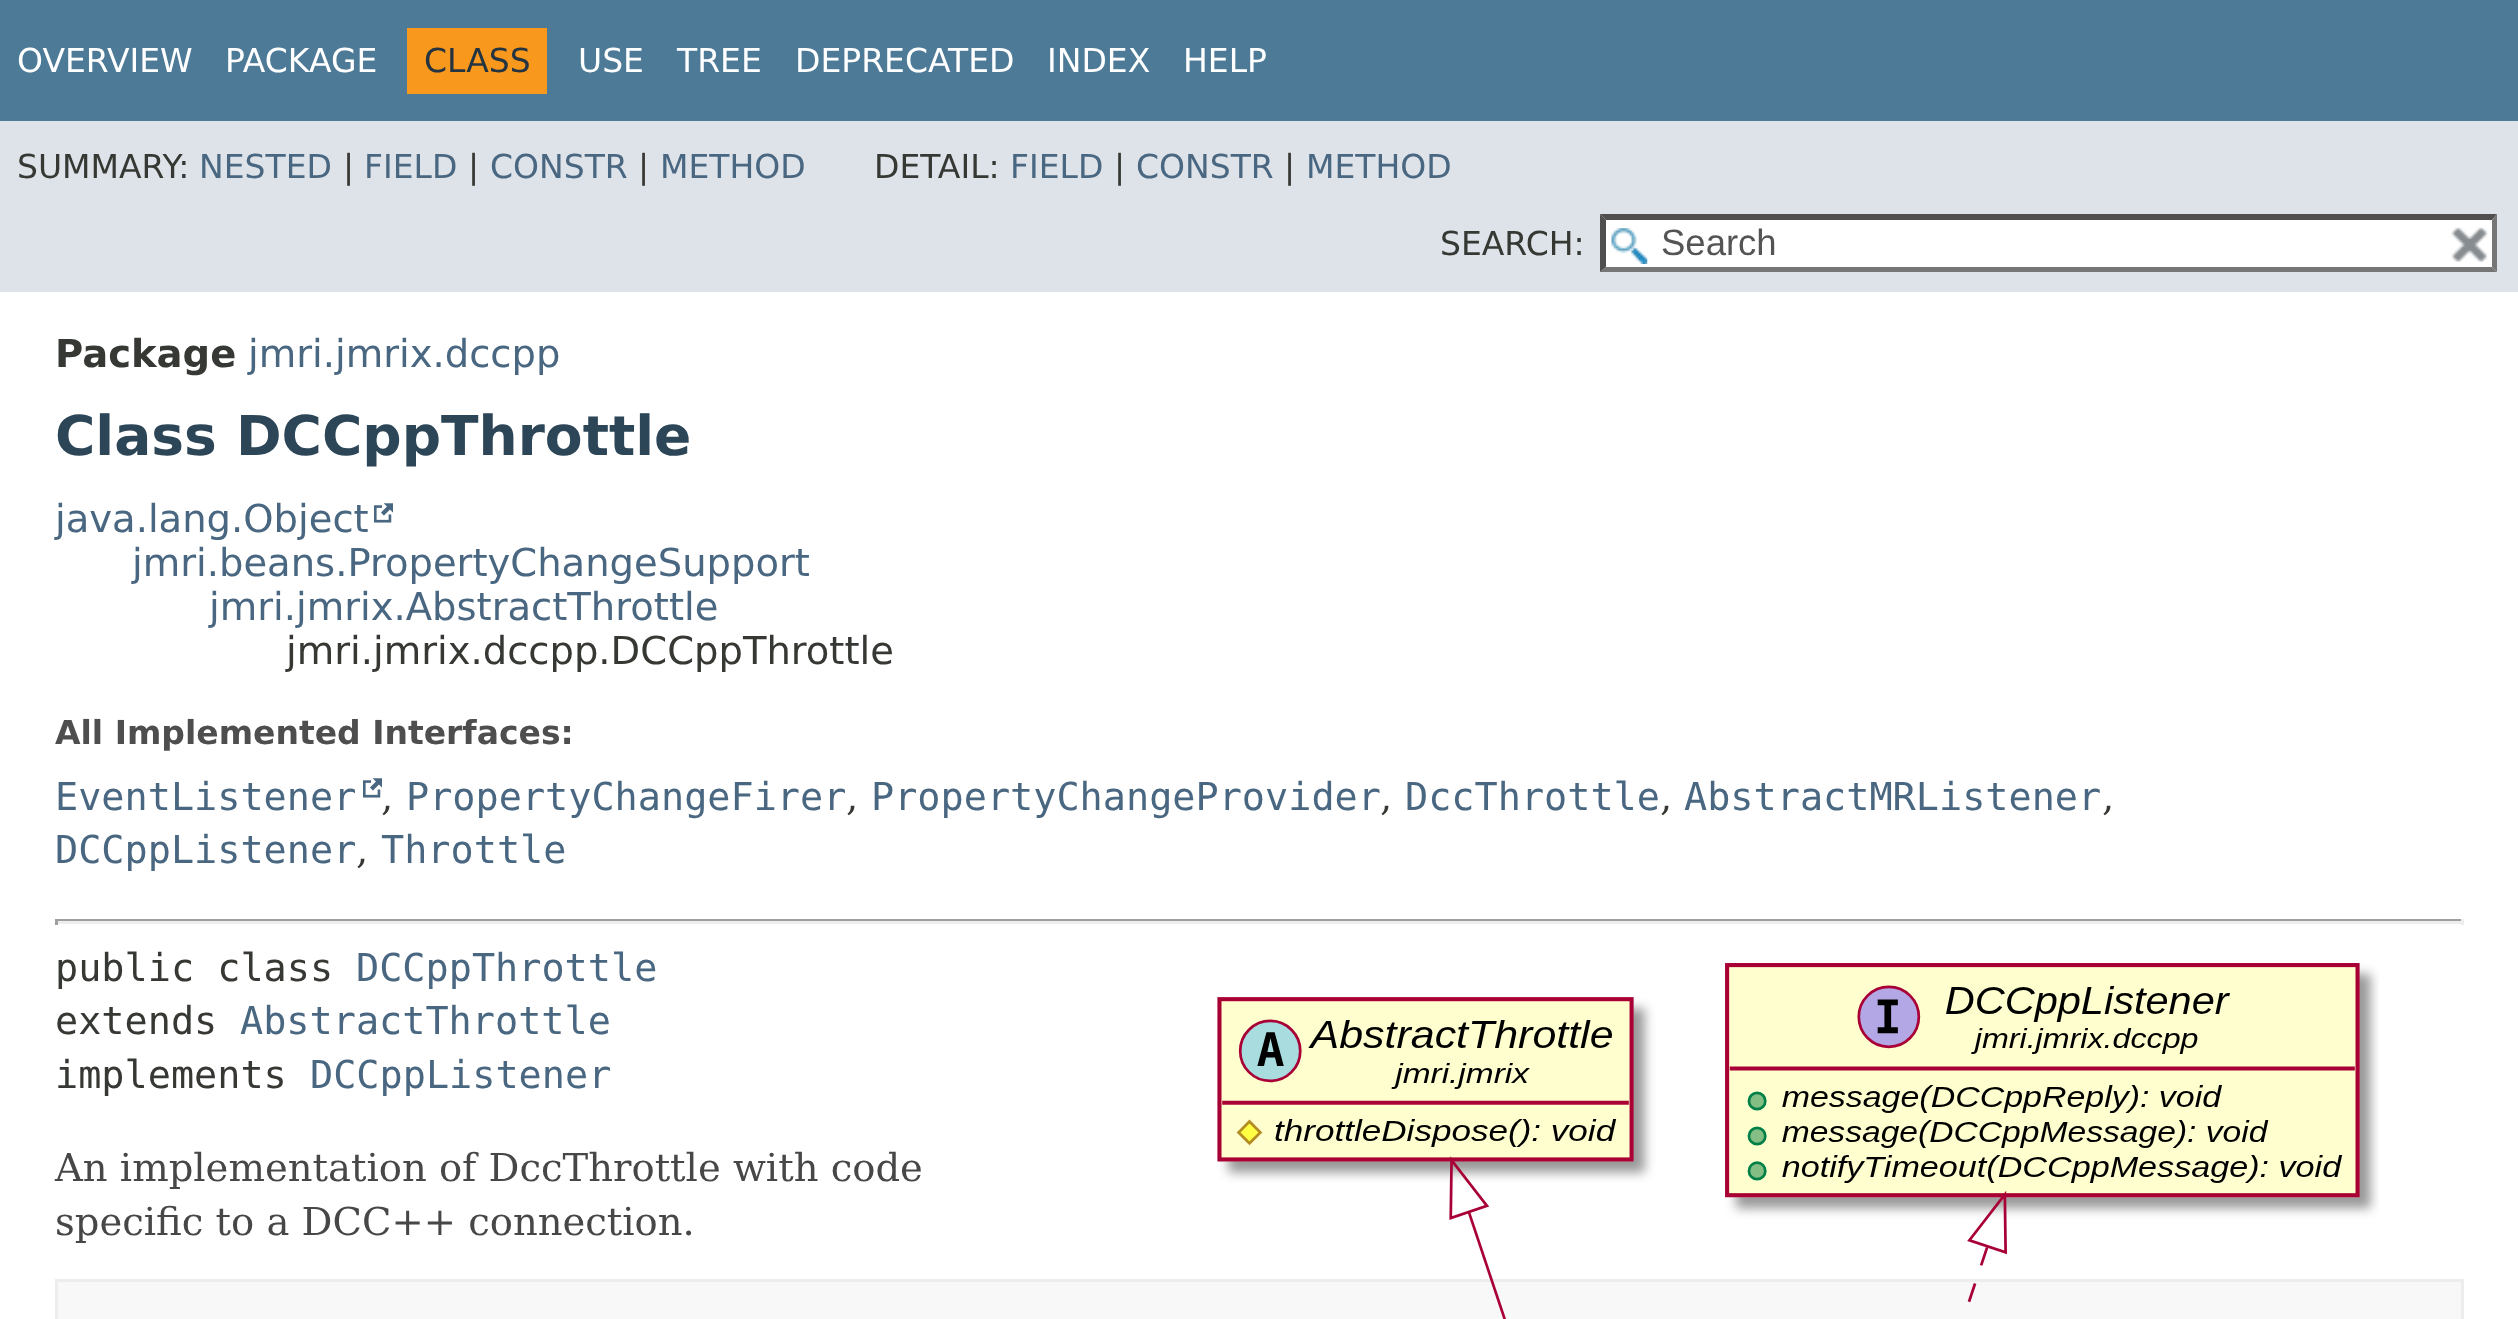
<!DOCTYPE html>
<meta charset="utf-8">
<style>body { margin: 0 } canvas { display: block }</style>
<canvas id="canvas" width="2518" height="1319"></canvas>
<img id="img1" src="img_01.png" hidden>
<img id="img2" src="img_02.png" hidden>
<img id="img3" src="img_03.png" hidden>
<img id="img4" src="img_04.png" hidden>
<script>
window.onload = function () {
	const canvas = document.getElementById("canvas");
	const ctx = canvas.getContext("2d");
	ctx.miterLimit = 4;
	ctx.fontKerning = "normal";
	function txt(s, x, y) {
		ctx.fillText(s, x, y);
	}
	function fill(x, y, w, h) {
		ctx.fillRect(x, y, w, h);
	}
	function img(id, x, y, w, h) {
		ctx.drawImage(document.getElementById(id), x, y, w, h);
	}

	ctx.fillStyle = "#FFFFFF";
	fill(0, 0, 2518, 1319);
	ctx.fillStyle = "#4D7A97";
	fill(0, 0, 2518, 121);
	ctx.fillStyle = "#F8981D";
	fill(407, 28, 140, 66);
	ctx.fillStyle = "#DEE3E9";
	fill(0, 121, 2518, 171);
	ctx.fillStyle = "#FFFFFF";
	fill(1601, 215, 896, 57);
	img("img1", 1611, 228, 37, 36);
	ctx.fillStyle = "#4F4F4F";
	ctx.beginPath();
	ctx.moveTo(1600, 214);
	ctx.lineTo(2497, 214);
	ctx.lineTo(2492, 220);
	ctx.lineTo(1606, 220);
	ctx.closePath();
	ctx.fill();
	ctx.fillStyle = "#767676";
	ctx.beginPath();
	ctx.moveTo(2497, 214);
	ctx.lineTo(2497, 272);
	ctx.lineTo(2492, 267);
	ctx.lineTo(2492, 220);
	ctx.closePath();
	ctx.fill();
	ctx.beginPath();
	ctx.moveTo(2497, 272);
	ctx.lineTo(1600, 272);
	ctx.lineTo(1606, 267);
	ctx.lineTo(2492, 267);
	ctx.closePath();
	ctx.fill();
	ctx.fillStyle = "#4F4F4F";
	ctx.beginPath();
	ctx.moveTo(1600, 272);
	ctx.lineTo(1600, 214);
	ctx.lineTo(1606, 220);
	ctx.lineTo(1606, 267);
	ctx.closePath();
	ctx.fill();
	img("img2", 2451, 227, 37, 35);
	img("img3", 374, 503, 19, 20);
	img("img3", 363, 778, 19, 20);
	ctx.fillStyle = "#9F9F9F";
	fill(55, 919, 2409, 2);
	ctx.fillStyle = "#EEEEEE";
	fill(2461, 919, 3, 6);
	fill(55, 921, 2409, 3);
	ctx.fillStyle = "#9F9F9F";
	fill(55, 919, 3, 6);
	ctx.fillStyle = "#F8F8F8";
	ctx.beginPath();
	ctx.rect(56.5, 1280.5, 2406, 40);
	ctx.fill();
	ctx.strokeStyle = "#EDEDED";
	ctx.lineWidth = 3;
	ctx.stroke();
	img("img4", 1217, 963, 1162, 356);
	ctx.font = "33px DejaVu Sans";
	ctx.fillStyle = "#FFFFFF";
	txt("OVERVIEW", 17, 72);
	txt("PACKAGE", 225, 72);
	ctx.fillStyle = "#253441";
	txt("CLASS", 424, 72);
	ctx.fillStyle = "#FFFFFF";
	txt("USE", 578, 72);
	txt("TREE", 677, 72);
	txt("DEPRECATED", 795, 72);
	txt("INDEX", 1047, 72);
	txt("HELP", 1183, 72);
	ctx.fillStyle = "#353833";
	txt("SUMMARY:", 17, 178);
	ctx.fillStyle = "#4A6782";
	txt("NESTED", 199, 178);
	ctx.fillStyle = "#353833";
	txt("|", 343, 178);
	ctx.fillStyle = "#4A6782";
	txt("FIELD", 364, 178);
	ctx.fillStyle = "#353833";
	txt("|", 468, 178);
	ctx.fillStyle = "#4A6782";
	txt("CONSTR", 490, 178);
	ctx.fillStyle = "#353833";
	txt("|", 638, 178);
	ctx.fillStyle = "#4A6782";
	txt("METHOD", 660, 178);
	ctx.fillStyle = "#353833";
	txt("DETAIL:", 874, 178);
	ctx.fillStyle = "#4A6782";
	txt("FIELD", 1010, 178);
	ctx.fillStyle = "#353833";
	txt("|", 1114, 178);
	ctx.fillStyle = "#4A6782";
	txt("CONSTR", 1136, 178);
	ctx.fillStyle = "#353833";
	txt("|", 1284, 178);
	ctx.fillStyle = "#4A6782";
	txt("METHOD", 1306, 178);
	ctx.fillStyle = "#353833";
	txt("SEARCH:", 1440, 255);
	ctx.font = "36.5px Liberation Sans";
	ctx.fillStyle = "#545454";
	txt("Search", 1661, 255);
	ctx.font = "bold 38.5px DejaVu Sans";
	ctx.fillStyle = "#353833";
	txt("Package", 55, 367);
	ctx.font = "38.5px DejaVu Sans";
	ctx.fillStyle = "#4A6782";
	txt("jmri.jmrix.dccpp", 248, 367);
	ctx.font = "bold 55px DejaVu Sans";
	ctx.fillStyle = "#2C4557";
	txt("Class DCCppThrottle", 55, 455);
	ctx.font = "38.5px DejaVu Sans";
	ctx.fillStyle = "#4A6782";
	txt("java.lang.Object", 55, 532);
	txt("jmri.beans.PropertyChangeSupport", 132, 576);
	txt("jmri.jmrix.AbstractThrottle", 209, 620);
	ctx.fillStyle = "#353833";
	txt("jmri.jmrix.dccpp.DCCppThrottle", 286, 664);
	ctx.font = "bold 33px DejaVu Sans";
	ctx.fillStyle = "#4E4E4E";
	txt("All Implemented Interfaces:", 55, 744);
	ctx.font = "38.5px DejaVu Sans Mono";
	ctx.fillStyle = "#4A6782";
	txt("EventListener", 55, 810);
	ctx.font = "38.5px DejaVu Serif";
	ctx.fillStyle = "#353833";
	txt(",", 381, 810);
	ctx.font = "38.5px DejaVu Sans Mono";
	ctx.fillStyle = "#4A6782";
	txt("PropertyChangeFirer", 406, 810);
	ctx.font = "38.5px DejaVu Serif";
	ctx.fillStyle = "#353833";
	txt(",", 846, 810);
	ctx.font = "38.5px DejaVu Sans Mono";
	ctx.fillStyle = "#4A6782";
	txt("PropertyChangeProvider", 871, 810);
	ctx.font = "38.5px DejaVu Serif";
	ctx.fillStyle = "#353833";
	txt(",", 1380, 810);
	ctx.font = "38.5px DejaVu Sans Mono";
	ctx.fillStyle = "#4A6782";
	txt("DccThrottle", 1405, 810);
	ctx.font = "38.5px DejaVu Serif";
	ctx.fillStyle = "#353833";
	txt(",", 1660, 810);
	ctx.font = "38.5px DejaVu Sans Mono";
	ctx.fillStyle = "#4A6782";
	txt("AbstractMRListener", 1684, 810);
	ctx.font = "38.5px DejaVu Serif";
	ctx.fillStyle = "#353833";
	txt(",", 2102, 810);
	ctx.font = "38.5px DejaVu Sans Mono";
	ctx.fillStyle = "#4A6782";
	txt("DCCppListener", 55, 863);
	ctx.font = "38.5px DejaVu Serif";
	ctx.fillStyle = "#353833";
	txt(",", 356, 863);
	ctx.font = "38.5px DejaVu Sans Mono";
	ctx.fillStyle = "#4A6782";
	txt("Throttle", 381, 863);
	ctx.fillStyle = "#353833";
	txt("public class", 55, 981);
	ctx.fillStyle = "#4A6782";
	txt("DCCppThrottle", 356, 981);
	ctx.fillStyle = "#353833";
	txt("extends", 55, 1034);
	ctx.fillStyle = "#4A6782";
	txt("AbstractThrottle", 240, 1034);
	ctx.fillStyle = "#353833";
	txt("implements", 55, 1088);
	ctx.fillStyle = "#4A6782";
	txt("DCCppListener", 310, 1088);
	ctx.font = "38.5px DejaVu Serif";
	ctx.fillStyle = "#474747";
	txt("An implementation of DccThrottle with code", 55, 1181);
	txt("specific to a DCC++ connection.", 55, 1235);
};
</script>
